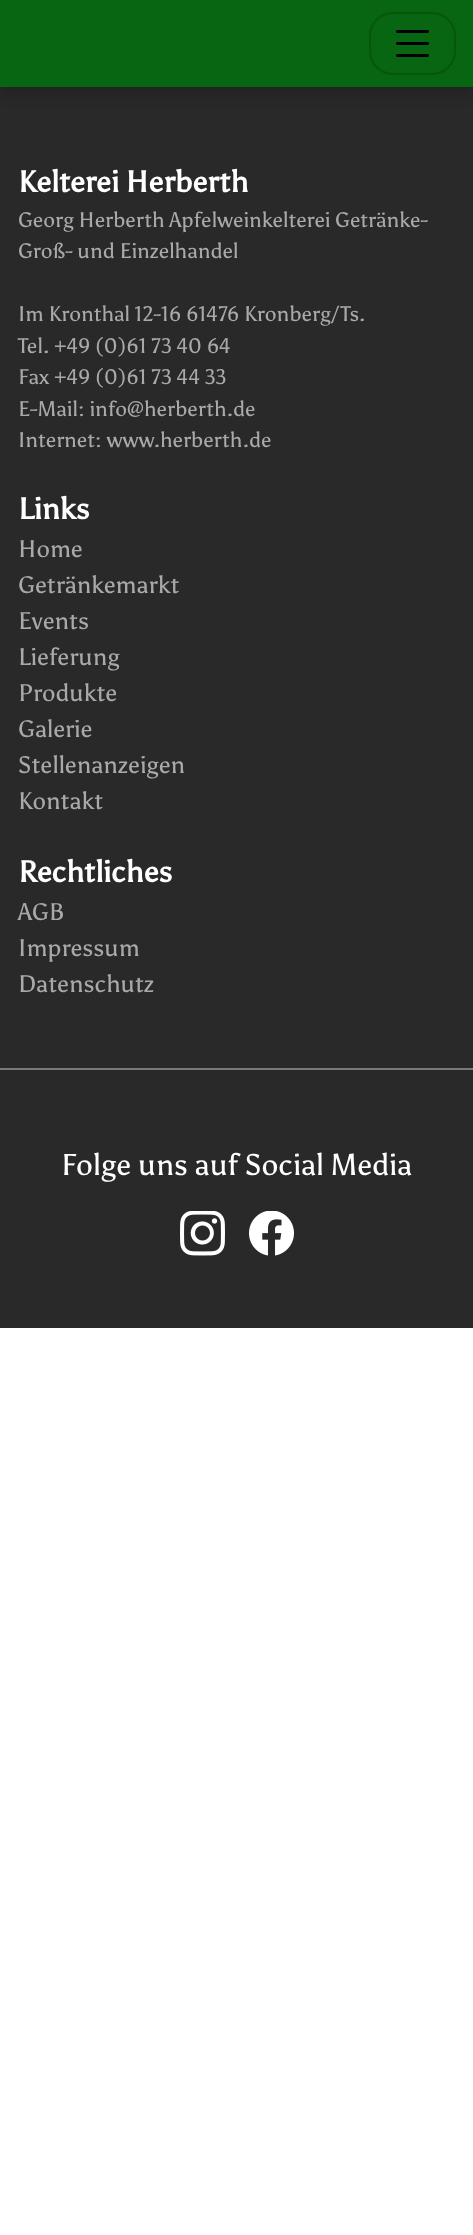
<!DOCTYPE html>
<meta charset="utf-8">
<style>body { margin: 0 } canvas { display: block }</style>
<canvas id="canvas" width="473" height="2235"></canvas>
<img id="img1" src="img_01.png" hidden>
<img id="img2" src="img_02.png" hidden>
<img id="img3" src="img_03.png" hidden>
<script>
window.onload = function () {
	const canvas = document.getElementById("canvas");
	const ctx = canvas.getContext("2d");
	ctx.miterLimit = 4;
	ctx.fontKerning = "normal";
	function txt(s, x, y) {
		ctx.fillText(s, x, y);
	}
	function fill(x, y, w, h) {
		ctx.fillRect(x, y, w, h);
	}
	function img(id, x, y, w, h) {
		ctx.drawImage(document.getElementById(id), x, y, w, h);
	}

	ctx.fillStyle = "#FFFFFF";
	fill(0, 0, 473, 2235);
	ctx.fillStyle = "#292929";
	fill(0, 87, 473, 1241);
	ctx.fillStyle = "rgba(0, 0, 0, 0.15)";
	ctx.filter = "blur(6px)";
	ctx.beginPath();
	ctx.rect(0, 9, 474, 87);
	ctx.fill();
	ctx.filter = "none";
	ctx.fillStyle = "#086511";
	fill(0, 0, 473, 87);
	ctx.beginPath();
	ctx.roundRect(370, 13, 85, 61, 23);
	ctx.strokeStyle = "#07560E";
	ctx.lineWidth = 2;
	ctx.stroke();
	img("img1", 396, 30, 33, 27);
	ctx.fillStyle = "#797979";
	fill(0, 1068, 473, 2);
	img("img2", 180, 1211, 45, 45);
	img("img3", 249, 1211, 45, 45);
	ctx.font = "bold 30px Asul";
	ctx.fillStyle = "#FFFFFF";
	txt("Kelterei Herberth", 18, 192);
	ctx.font = "21px Asul";
	ctx.fillStyle = "#A9A9A9";
	txt("Georg Herberth Apfelweinkelterei Getränke-", 18, 227);
	txt("Groß- und Einzelhandel", 18, 258);
	txt("Im Kronthal 12-16 61476 Kronberg/Ts.", 18, 321);
	txt("Tel. +49 (0)61 73 40 64", 18, 353);
	txt("Fax +49 (0)61 73 44 33", 18, 384);
	txt("E-Mail: info@herberth.de", 18, 416);
	txt("Internet: www.herberth.de", 18, 447);
	ctx.font = "bold 30px Asul";
	ctx.fillStyle = "#FFFFFF";
	txt("Links", 18, 519);
	ctx.font = "24px Asul";
	ctx.fillStyle = "#A9A9A9";
	txt("Home", 18, 557);
	txt("Getränkemarkt", 18, 593);
	txt("Events", 18, 629);
	txt("Lieferung", 18, 665);
	txt("Produkte", 18, 701);
	txt("Galerie", 18, 737);
	txt("Stellenanzeigen", 18, 773);
	txt("Kontakt", 18, 809);
	ctx.font = "bold 30px Asul";
	ctx.fillStyle = "#FFFFFF";
	txt("Rechtliches", 18, 882);
	ctx.font = "24px Asul";
	ctx.fillStyle = "#A9A9A9";
	txt("AGB", 18, 920);
	txt("Impressum", 18, 956);
	txt("Datenschutz", 18, 992);
	ctx.font = "30px Asul";
	ctx.fillStyle = "#FFFFFF";
	txt("Folge uns auf Social Media", 61, 1175);
};
</script>
